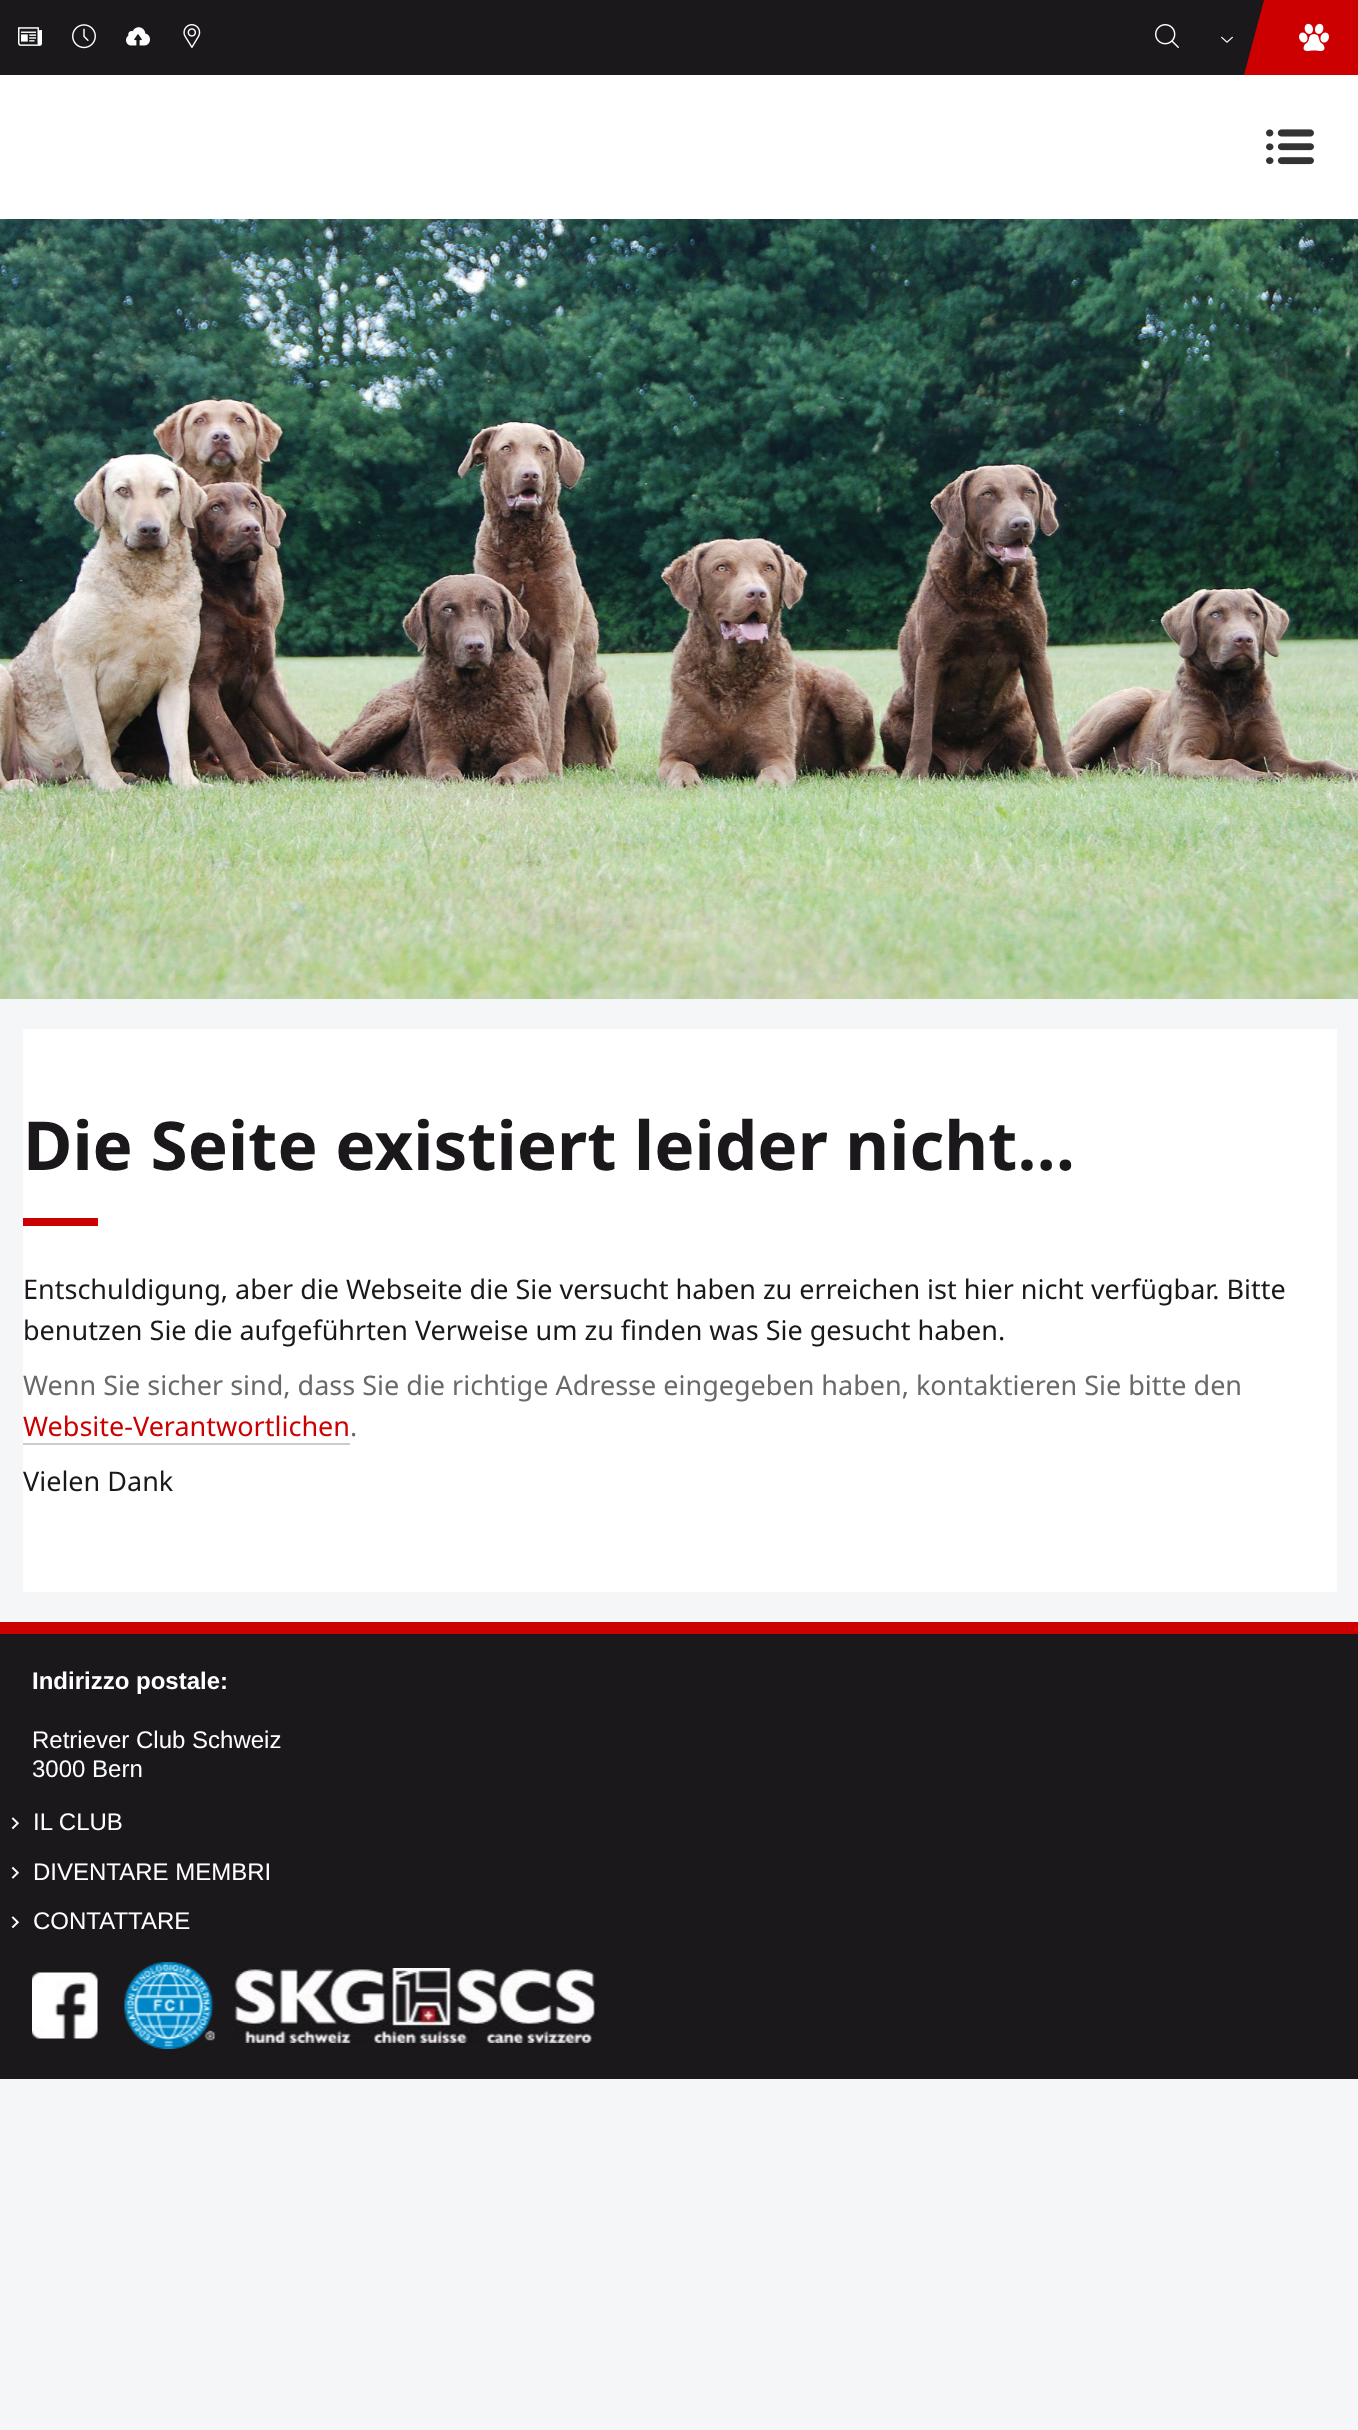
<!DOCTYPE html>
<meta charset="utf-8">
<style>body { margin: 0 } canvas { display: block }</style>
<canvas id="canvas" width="1358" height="2430"></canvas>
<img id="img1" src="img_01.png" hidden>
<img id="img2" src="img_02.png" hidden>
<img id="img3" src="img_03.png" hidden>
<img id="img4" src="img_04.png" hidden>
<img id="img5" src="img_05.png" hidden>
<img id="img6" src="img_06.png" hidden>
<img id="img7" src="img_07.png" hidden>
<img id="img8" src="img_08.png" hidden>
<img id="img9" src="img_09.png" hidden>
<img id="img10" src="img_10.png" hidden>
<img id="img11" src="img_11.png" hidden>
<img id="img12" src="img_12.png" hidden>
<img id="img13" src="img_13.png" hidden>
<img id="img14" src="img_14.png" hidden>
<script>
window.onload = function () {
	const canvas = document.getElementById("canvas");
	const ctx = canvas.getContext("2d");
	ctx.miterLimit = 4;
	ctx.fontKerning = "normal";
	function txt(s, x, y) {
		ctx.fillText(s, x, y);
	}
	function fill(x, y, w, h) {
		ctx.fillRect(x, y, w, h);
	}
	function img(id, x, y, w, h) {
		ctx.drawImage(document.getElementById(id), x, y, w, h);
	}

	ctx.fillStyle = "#F5F6F8";
	fill(0, 0, 1358, 2430);
	ctx.fillStyle = "#FFFFFF";
	fill(0, 75, 1358, 144);
	ctx.fillStyle = "#1A181B";
	fill(0, 0, 1264, 75);
	img("img1", 18, 27, 24, 19);
	img("img2", 72, 24, 24, 25);
	img("img3", 126, 27, 24, 19);
	img("img4", 183, 24, 18, 24);
	img("img5", 1155, 24, 24, 24);
	img("img6", 1221, 36, 12, 7);
	ctx.fillStyle = "#CC0001";
	fill(1274, 0, 84, 75);
	ctx.beginPath();
	ctx.moveTo(1264, 0);
	ctx.lineTo(1294, 0);
	ctx.lineTo(1274, 75);
	ctx.lineTo(1244, 75);
	ctx.closePath();
	ctx.fill();
	img("img7", 1299, 23, 30, 29);
	img("img8", 1266, 129, 48, 36);
	img("img9", 0, 219, 1358, 780);
	ctx.fillStyle = "#FFFFFF";
	fill(23, 1029, 1314, 563);
	ctx.fillStyle = "#CC0001";
	fill(23, 1218, 75, 8);
	ctx.fillStyle = "#CCCCCC";
	fill(23, 1443, 327, 2);
	ctx.fillStyle = "#1A181B";
	fill(0, 1634, 1358, 445);
	ctx.fillStyle = "#CC0001";
	fill(0, 1622, 1358, 12);
	img("img10", 11, 1817, 8, 13);
	img("img11", 11, 1866, 8, 13);
	img("img10", 11, 1916, 8, 13);
	img("img12", 32, 1972, 66, 67);
	img("img13", 124, 1962, 91, 87);
	img("img14", 234, 1968, 361, 75);
	ctx.font = "bold 67.5px Noto Sans";
	ctx.fillStyle = "#1A181B";
	txt("Die Seite existiert leider nicht…", 23, 1170);
	ctx.font = "27px Noto Sans";
	txt("Entschuldigung, aber die Webseite die Sie versucht haben zu erreichen ist hier nicht verfügbar. Bitte", 23, 1299);
	txt("benutzen Sie die aufgeführten Verweise um zu finden was Sie gesucht haben.", 23, 1340);
	ctx.fillStyle = "#696969";
	txt("Wenn Sie sicher sind, dass Sie die richtige Adresse eingegeben haben, kontaktieren Sie bitte den", 23, 1395);
	ctx.fillStyle = "#CC0000";
	txt("Website-Verantwortlichen", 23, 1436);
	ctx.fillStyle = "#696969";
	txt(".", 350, 1436);
	ctx.fillStyle = "#1A181B";
	txt("Vielen Dank", 23, 1491);
	ctx.font = "bold 24px Liberation Sans";
	ctx.fillStyle = "#FFFFFF";
	txt("Indirizzo postale:", 32, 1689);
	ctx.font = "24px Liberation Sans";
	txt("Retriever Club Schweiz", 32, 1748);
	txt("3000 Bern", 32, 1777);
	txt("IL CLUB", 33, 1830);
	txt("DIVENTARE MEMBRI", 33, 1880);
	txt("CONTATTARE", 33, 1929);
};
</script>
